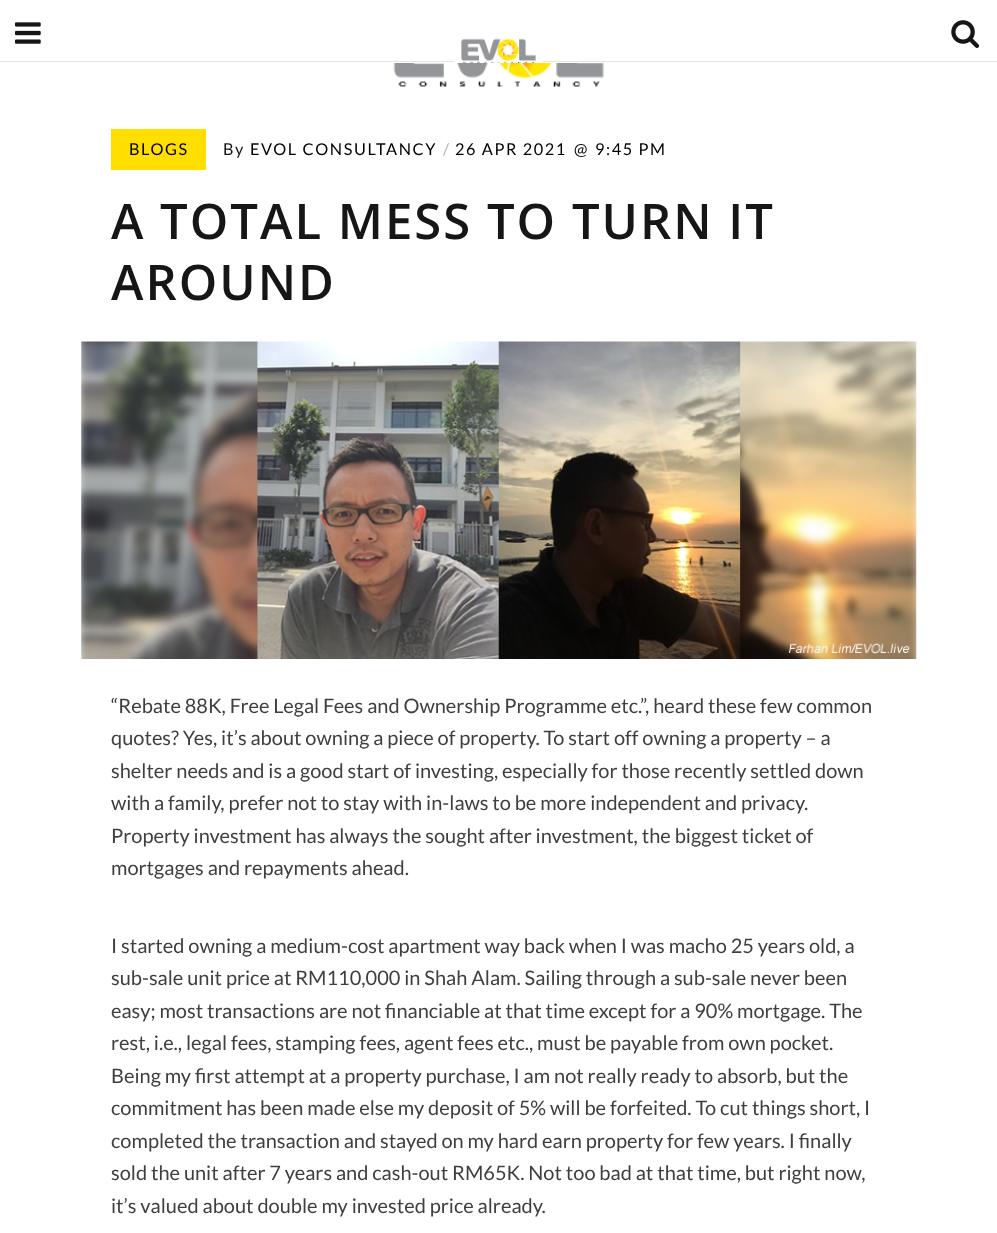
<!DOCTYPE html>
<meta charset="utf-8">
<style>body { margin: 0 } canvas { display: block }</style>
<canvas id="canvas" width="997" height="1233"></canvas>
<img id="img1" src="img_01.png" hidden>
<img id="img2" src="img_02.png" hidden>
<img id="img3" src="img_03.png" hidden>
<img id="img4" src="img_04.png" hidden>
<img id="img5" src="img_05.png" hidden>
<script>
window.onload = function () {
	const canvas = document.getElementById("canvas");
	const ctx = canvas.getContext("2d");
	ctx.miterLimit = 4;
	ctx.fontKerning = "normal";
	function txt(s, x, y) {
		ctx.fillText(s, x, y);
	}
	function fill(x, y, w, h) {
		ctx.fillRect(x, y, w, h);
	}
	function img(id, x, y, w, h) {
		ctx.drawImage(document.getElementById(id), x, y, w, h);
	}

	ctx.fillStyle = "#FFFFFF";
	fill(0, 0, 997, 1233);
	ctx.fillStyle = "#E2E3E3";
	fill(0, 61, 997, 1);
	img("img1", 15, 22, 26, 22);
	img("img2", 951, 20, 29, 28);
	img("img3", 454, 38, 89, 25);
	img("img4", 393, 63, 211, 24);
	ctx.fillStyle = "#FFDE00";
	fill(111, 129, 95, 41);
	img("img5", 81, 341, 836, 318);
	ctx.letterSpacing = "1.6px";
	ctx.font = "16.25px Lato";
	ctx.fillStyle = "#000000";
	txt("BLOGS", 129, 155);
	ctx.fillStyle = "#171617";
	txt("By", 223, 155);
	ctx.fillStyle = "#000000";
	txt("EVOL CONSULTANCY", 250, 155);
	ctx.fillStyle = "#B5B5B5";
	txt("/", 443, 155);
	ctx.fillStyle = "#000000";
	txt("26 APR 2021", 455, 155);
	txt("@", 574, 155);
	txt("9:45 PM", 595, 155);
	ctx.letterSpacing = "2px";
	ctx.font = "600 49px Open Sans";
	ctx.fillStyle = "#171617";
	txt("A TOTAL MESS TO TURN IT", 111, 239);
	txt("AROUND", 111, 300);
	ctx.letterSpacing = "0px";
	ctx.font = "20px Lato";
	ctx.fillStyle = "#3E3F40";
	txt("“Rebate 88K, Free Legal Fees and Ownership Programme etc.”, heard these few common", 111, 713);
	txt("quotes? Yes, it’s about owning a piece of property. To start off owning a property – a", 111, 745);
	txt("shelter needs and is a good start of investing, especially for those recently settled down", 111, 778);
	txt("with a family, prefer not to stay with in-laws to be more independent and privacy.", 111, 810);
	txt("Property investment has always the sought after investment, the biggest ticket of", 111, 843);
	txt("mortgages and repayments ahead.", 111, 875);
	txt("I started owning a medium-cost apartment way back when I was macho 25 years old, a", 111, 953);
	txt("sub-sale unit price at RM110,000 in Shah Alam. Sailing through a sub-sale never been", 111, 985);
	txt("easy; most transactions are not financiable at that time except for a 90% mortgage. The", 111, 1018);
	txt("rest, i.e., legal fees, stamping fees, agent fees etc., must be payable from own pocket.", 111, 1050);
	txt("Being my first attempt at a property purchase, I am not really ready to absorb, but the", 111, 1083);
	txt("commitment has been made else my deposit of 5% will be forfeited. To cut things short, I", 111, 1115);
	txt("completed the transaction and stayed on my hard earn property for few years. I finally", 111, 1148);
	txt("sold the unit after 7 years and cash-out RM65K. Not too bad at that time, but right now,", 111, 1180);
	txt("it’s valued about double my invested price already.", 111, 1213);
};
</script>
